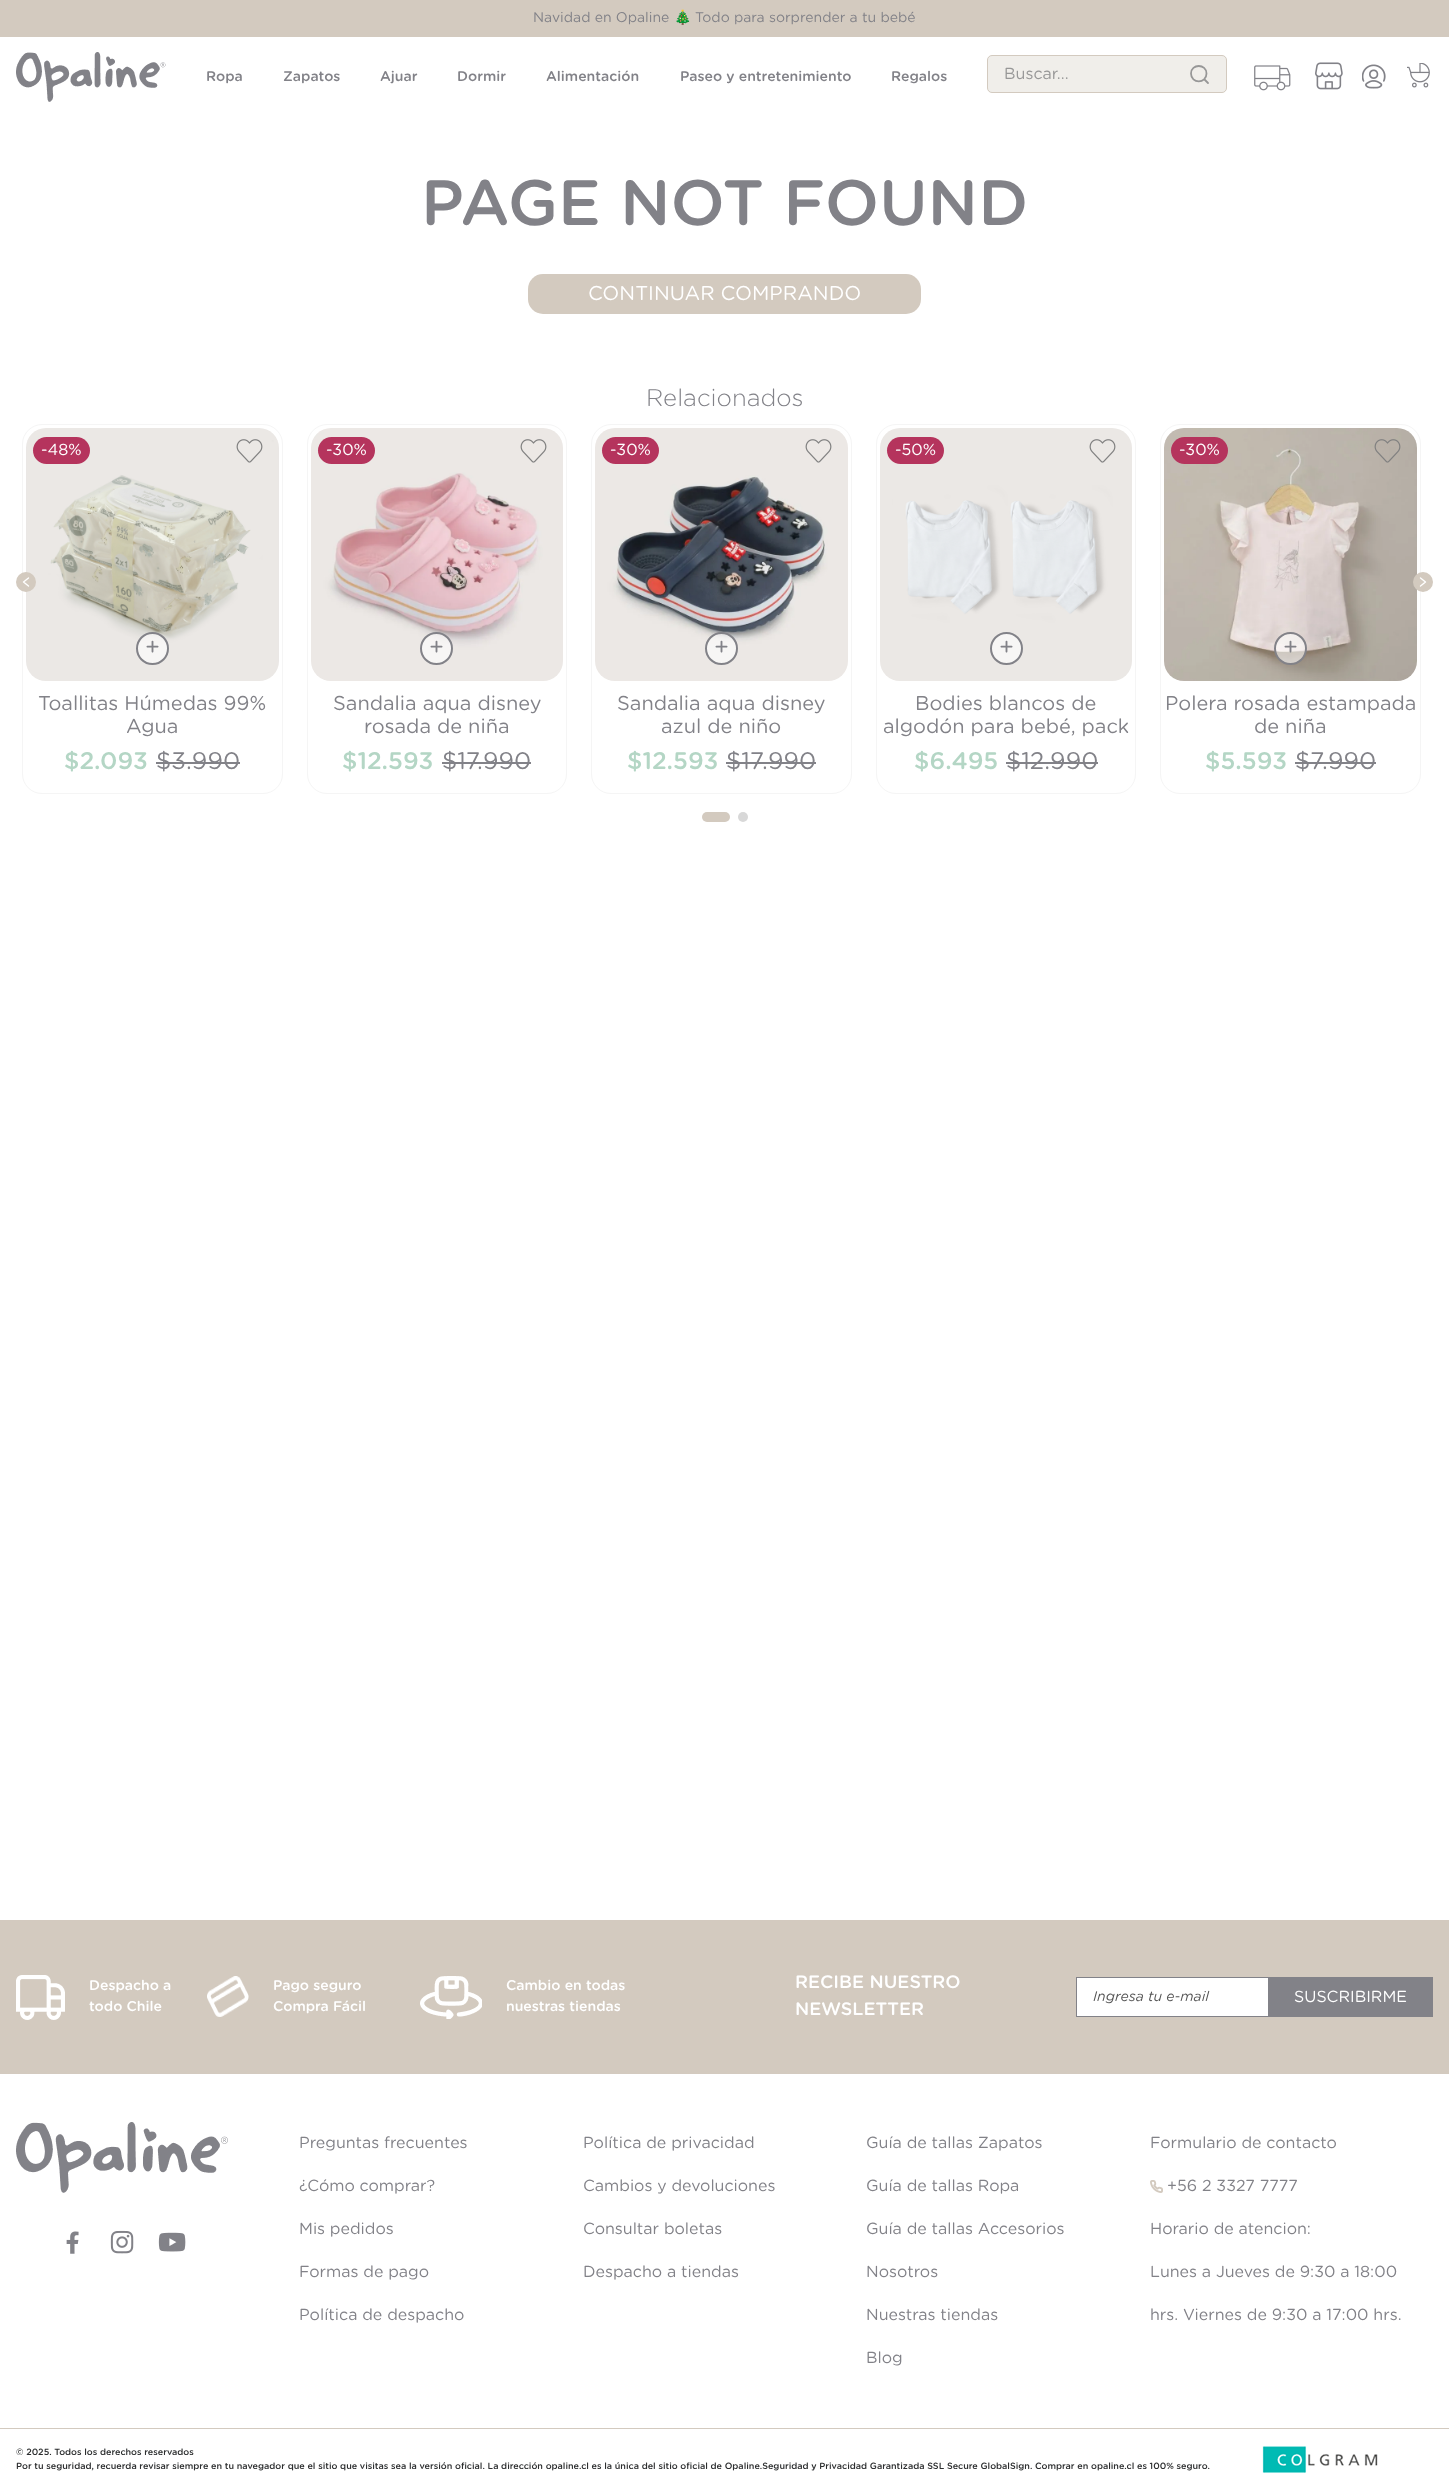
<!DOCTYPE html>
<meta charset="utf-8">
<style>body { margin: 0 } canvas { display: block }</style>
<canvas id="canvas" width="1449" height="2490"></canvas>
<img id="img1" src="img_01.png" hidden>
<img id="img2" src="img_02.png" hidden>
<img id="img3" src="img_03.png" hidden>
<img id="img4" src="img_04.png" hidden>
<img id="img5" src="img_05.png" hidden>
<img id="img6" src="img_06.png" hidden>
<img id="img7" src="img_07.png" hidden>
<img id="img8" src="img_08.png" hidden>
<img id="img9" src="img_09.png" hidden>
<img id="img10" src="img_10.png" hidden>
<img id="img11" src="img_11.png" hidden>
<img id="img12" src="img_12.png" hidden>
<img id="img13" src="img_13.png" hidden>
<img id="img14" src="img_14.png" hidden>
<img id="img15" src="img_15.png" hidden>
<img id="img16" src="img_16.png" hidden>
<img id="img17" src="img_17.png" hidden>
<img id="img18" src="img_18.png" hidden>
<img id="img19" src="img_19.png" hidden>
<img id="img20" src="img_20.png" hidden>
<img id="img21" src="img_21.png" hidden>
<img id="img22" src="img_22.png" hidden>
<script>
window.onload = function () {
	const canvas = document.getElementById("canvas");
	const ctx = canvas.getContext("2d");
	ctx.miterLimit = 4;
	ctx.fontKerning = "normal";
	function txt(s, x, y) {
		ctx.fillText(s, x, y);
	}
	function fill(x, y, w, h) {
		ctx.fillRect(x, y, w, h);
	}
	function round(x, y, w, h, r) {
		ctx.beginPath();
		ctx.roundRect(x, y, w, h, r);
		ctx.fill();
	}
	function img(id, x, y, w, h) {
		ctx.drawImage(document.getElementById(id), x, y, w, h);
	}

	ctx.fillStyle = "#FFFFFF";
	fill(0, 0, 1449, 2490);
	ctx.fillStyle = "#D3CABF";
	fill(0, 0, 1449, 37);
	img("img1", 16, 52, 150, 50);
	ctx.fillStyle = "#F0EEEA";
	ctx.beginPath();
	ctx.roundRect(987.5, 55.5, 239, 37, 4.5);
	ctx.fill();
	ctx.strokeStyle = "#D3CABF";
	ctx.stroke();
	ctx.beginPath();
	ctx.moveTo(1204.5, 79.5);
	ctx.lineTo(1208, 83);
	ctx.moveTo(1206.5, 73.5);
	ctx.bezierCurveTo(1206.5, 63.5, 1191, 63.5, 1191, 73.5);
	ctx.bezierCurveTo(1191, 84, 1206.5, 84, 1206.5, 73.5);
	ctx.strokeStyle = "#979797";
	ctx.lineWidth = 1.8;
	ctx.lineCap = "round";
	ctx.lineJoin = "round";
	ctx.stroke();
	img("img2", 1254, 65, 37, 26);
	img("img3", 1315, 62, 28, 28);
	img("img4", 1362, 64, 24, 25);
	img("img5", 1407, 63, 23, 25);
	ctx.fillStyle = "#D3CABF";
	round(528, 274, 393, 40, 15);
	ctx.beginPath();
	ctx.roundRect(22.5, 424.5, 260, 369, 19.5);
	ctx.strokeStyle = "#F5F5F5";
	ctx.lineWidth = 1;
	ctx.lineJoin = "miter";
	ctx.stroke();
	img("img6", 26, 428, 253, 253);
	ctx.beginPath();
	ctx.arc(26, 582, 10, 0, Math.PI * 2);
	ctx.fill();
	ctx.beginPath();
	ctx.moveTo(28.5, 586);
	ctx.lineTo(23.5, 582);
	ctx.lineTo(28.5, 578);
	ctx.strokeStyle = "#FFFFFF";
	ctx.lineWidth = 1.4;
	ctx.lineJoin = "round";
	ctx.stroke();
	ctx.fillStyle = "#B5345D";
	round(33, 437, 57, 27, 13.5);
	ctx.fillStyle = "rgba(255, 255, 255, 0.6)";
	ctx.beginPath();
	ctx.arc(152.5, 648.5, 15.5, 0, Math.PI * 2);
	ctx.fill();
	ctx.strokeStyle = "#828288";
	ctx.lineWidth = 2;
	ctx.stroke();
	img("img7", 236, 439, 27, 24);
	ctx.fillStyle = "#828288";
	fill(156, 762, 84, 2);
	ctx.beginPath();
	ctx.roundRect(307.5, 424.5, 259, 369, 19.5);
	ctx.strokeStyle = "#F5F5F5";
	ctx.lineWidth = 1;
	ctx.lineJoin = "miter";
	ctx.stroke();
	img("img8", 311, 428, 252, 253);
	ctx.fillStyle = "#B5345D";
	round(318, 437, 57, 27, 13.5);
	ctx.fillStyle = "rgba(255, 255, 255, 0.6)";
	ctx.beginPath();
	ctx.arc(436.5, 648.5, 15.5, 0, Math.PI * 2);
	ctx.fill();
	ctx.strokeStyle = "#828288";
	ctx.lineWidth = 2;
	ctx.stroke();
	img("img9", 520, 439, 27, 24);
	ctx.fillStyle = "#828288";
	fill(442, 762, 41, 2);
	fill(483, 762, 48, 2);
	ctx.beginPath();
	ctx.roundRect(591.5, 424.5, 260, 369, 19.5);
	ctx.strokeStyle = "#F5F5F5";
	ctx.lineWidth = 1;
	ctx.stroke();
	img("img10", 595, 428, 253, 253);
	ctx.fillStyle = "#B5345D";
	round(602, 437, 57, 27, 13.5);
	ctx.fillStyle = "rgba(255, 255, 255, 0.6)";
	ctx.beginPath();
	ctx.arc(721.5, 648.5, 15.5, 0, Math.PI * 2);
	ctx.fill();
	ctx.strokeStyle = "#828288";
	ctx.lineWidth = 2;
	ctx.stroke();
	img("img9", 805, 439, 27, 24);
	ctx.fillStyle = "#828288";
	fill(726, 762, 42, 2);
	fill(768, 762, 48, 2);
	ctx.beginPath();
	ctx.roundRect(876.5, 424.5, 259, 369, 19.5);
	ctx.strokeStyle = "#F5F5F5";
	ctx.lineWidth = 1;
	ctx.stroke();
	img("img11", 880, 428, 252, 253);
	ctx.fillStyle = "#B5345D";
	round(887, 437, 57, 27, 13.5);
	ctx.fillStyle = "#F7F6F5";
	ctx.beginPath();
	ctx.arc(1006.5, 648.5, 15.5, 0, Math.PI * 2);
	ctx.fill();
	ctx.strokeStyle = "#828288";
	ctx.lineWidth = 2;
	ctx.stroke();
	img("img7", 1089, 439, 27, 24);
	ctx.fillStyle = "#828288";
	fill(1006, 762, 92, 2);
	ctx.beginPath();
	ctx.roundRect(1160.5, 424.5, 260, 369, 19.5);
	ctx.strokeStyle = "#F5F5F5";
	ctx.lineWidth = 1;
	ctx.stroke();
	img("img12", 1164, 428, 253, 253);
	ctx.fillStyle = "#B5345D";
	round(1171, 437, 57, 27, 13.5);
	ctx.fillStyle = "rgba(255, 255, 255, 0.6)";
	ctx.beginPath();
	ctx.arc(1290.5, 648.5, 15.5, 0, Math.PI * 2);
	ctx.fill();
	ctx.strokeStyle = "#828288";
	ctx.lineWidth = 2;
	ctx.stroke();
	img("img13", 1374, 439, 27, 24);
	ctx.fillStyle = "#828288";
	fill(1295, 762, 33, 2);
	fill(1328, 762, 48, 2);
	ctx.fillStyle = "#D3CABF";
	ctx.beginPath();
	ctx.arc(1423, 582, 10, 0, Math.PI * 2);
	ctx.fill();
	ctx.beginPath();
	ctx.moveTo(1420.5, 578);
	ctx.lineTo(1425.5, 582);
	ctx.lineTo(1420.5, 586);
	ctx.strokeStyle = "#FFFFFF";
	ctx.lineWidth = 1.4;
	ctx.lineJoin = "round";
	ctx.stroke();
	round(702, 812, 28, 10, 5);
	ctx.fillStyle = "#D8D8D8";
	ctx.beginPath();
	ctx.arc(743, 817, 5, 0, Math.PI * 2);
	ctx.fill();
	ctx.fillStyle = "#D3CABF";
	fill(0, 1920, 1449, 154);
	img("img14", 16, 1975, 49, 45);
	img("img15", 207, 1976, 42, 41);
	img("img16", 420, 1976, 62, 43);
	ctx.fillStyle = "#828288";
	fill(1076, 1977, 192, 1);
	fill(1076, 2016, 192, 1);
	fill(1076, 1977, 1, 40);
	ctx.fillStyle = "#FFFFFF";
	fill(1077, 1978, 191, 38);
	ctx.fillStyle = "#828288";
	fill(1268, 1977, 165, 40);
	img("img17", 16, 2122, 212, 71);
	img("img18", 66, 2231, 13, 23);
	img("img19", 110, 2230, 24, 24);
	img("img20", 158, 2232, 28, 20);
	img("img21", 1150, 2180, 13, 13);
	ctx.fillStyle = "#D3CABF";
	fill(0, 2428, 1449, 1);
	img("img22", 1262, 2446, 116, 27);
	ctx.font = "14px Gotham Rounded";
	ctx.fillStyle = "#828288";
	txt("Navidad en Opaline", 533, 22);
	ctx.font = "14px Noto Color Emoji";
	txt("🎄", 674, 22);
	ctx.font = "14px Gotham Rounded";
	txt("Todo para sorprender a tu bebé", 695, 22);
	ctx.font = "500 14px Gotham Rounded";
	txt("Ropa", 206, 81);
	txt("Zapatos", 283, 81);
	txt("Ajuar", 380, 81);
	txt("Dormir", 457, 81);
	txt("Alimentación", 546, 81);
	txt("Paseo y entretenimiento", 680, 81);
	txt("Regalos", 891, 81);
	ctx.font = "16px Gotham Rounded";
	ctx.fillStyle = "#979797";
	txt("Buscar...", 1004, 79);
	ctx.font = "500 64px Gotham Rounded";
	ctx.fillStyle = "#828288";
	txt("PAGE NOT FOUND", 421, 225);
	ctx.font = "20px Gotham Rounded";
	ctx.fillStyle = "#FFFFFF";
	txt("CONTINUAR COMPRANDO", 588, 300);
	ctx.font = "300 24px Gotham Rounded";
	ctx.fillStyle = "#828288";
	txt("Relacionados", 646, 406);
	ctx.font = "16px Gotham Rounded";
	ctx.fillStyle = "#FFFFFF";
	txt("-48%", 41, 455);
	ctx.font = "24px Gotham Rounded";
	ctx.fillStyle = "#828288";
	txt("+", 145, 655);
	ctx.font = "20px Gotham Rounded";
	txt("Toallitas Húmedas 99%", 38, 710);
	txt("Agua", 126, 733);
	ctx.font = "500 24px Gotham Rounded";
	ctx.fillStyle = "#B4D6C5";
	txt("$2.", 64, 769);
	txt("093", 100, 769);
	ctx.font = "24px Gotham Rounded";
	ctx.fillStyle = "#828288";
	txt("$3.990", 156, 769);
	ctx.font = "16px Gotham Rounded";
	ctx.fillStyle = "#FFFFFF";
	txt("-30%", 326, 455);
	ctx.font = "24px Gotham Rounded";
	ctx.fillStyle = "#828288";
	txt("+", 429, 655);
	ctx.font = "20px Gotham Rounded";
	txt("Sandalia aqua disney", 333, 710);
	txt("rosada de niña", 364, 733);
	ctx.font = "500 24px Gotham Rounded";
	ctx.fillStyle = "#B4D6C5";
	txt("$12.593", 342, 769);
	ctx.font = "24px Gotham Rounded";
	ctx.fillStyle = "#828288";
	txt("$17", 442, 769);
	txt(".990", 477, 769);
	ctx.font = "16px Gotham Rounded";
	ctx.fillStyle = "#FFFFFF";
	txt("-30%", 610, 455);
	ctx.font = "24px Gotham Rounded";
	ctx.fillStyle = "#828288";
	txt("+", 714, 655);
	ctx.font = "20px Gotham Rounded";
	txt("Sandalia aqua disney", 617, 710);
	txt("azul de niño", 661, 733);
	ctx.font = "500 24px Gotham Rounded";
	ctx.fillStyle = "#B4D6C5";
	txt("$12.593", 627, 769);
	ctx.font = "24px Gotham Rounded";
	ctx.fillStyle = "#828288";
	txt("$17", 726, 769);
	txt(".990", 762, 769);
	ctx.font = "16px Gotham Rounded";
	ctx.fillStyle = "#FFFFFF";
	txt("-50%", 895, 455);
	ctx.font = "24px Gotham Rounded";
	ctx.fillStyle = "#828288";
	txt("+", 999, 655);
	ctx.font = "20px Gotham Rounded";
	txt("Bodies blancos de", 915, 710);
	txt("algodón para bebé, pack", 883, 733);
	ctx.font = "500 24px Gotham Rounded";
	ctx.fillStyle = "#B4D6C5";
	txt("$6.495", 914, 769);
	ctx.font = "24px Gotham Rounded";
	ctx.fillStyle = "#828288";
	txt("$12.990", 1006, 769);
	ctx.font = "16px Gotham Rounded";
	ctx.fillStyle = "#FFFFFF";
	txt("-30%", 1179, 455);
	ctx.font = "24px Gotham Rounded";
	ctx.fillStyle = "#828288";
	txt("+", 1283, 655);
	ctx.font = "20px Gotham Rounded";
	txt("Polera rosada estampada", 1165, 710);
	txt("de niña", 1254, 733);
	ctx.font = "500 24px Gotham Rounded";
	ctx.fillStyle = "#B4D6C5";
	txt("$5.593", 1205, 769);
	ctx.font = "24px Gotham Rounded";
	ctx.fillStyle = "#828288";
	txt("$7", 1295, 769);
	txt(".990", 1322, 769);
	ctx.font = "500 14px Gotham Rounded";
	ctx.fillStyle = "#FFFFFF";
	txt("Despacho a", 89, 1990);
	txt("todo Chile", 89, 2011);
	txt("Pago seguro", 273, 1990);
	txt("Compra Fácil", 273, 2011);
	txt("Cambio en todas", 506, 1990);
	txt("nuestras tiendas", 506, 2011);
	ctx.font = "500 18px Gotham Rounded";
	txt("RECIBE NUESTRO", 795, 1988);
	txt("NEWSLETTER", 795, 2015);
	ctx.font = "italic 14px Gotham Rounded";
	ctx.fillStyle = "#545454";
	txt("Ingresa tu e-mail", 1093, 2001);
	ctx.font = "16px Gotham Rounded";
	ctx.fillStyle = "#FFFFFF";
	txt("SUSCRIBIRME", 1294, 2002);
	ctx.fillStyle = "#828288";
	txt("Preguntas frecuentes", 299, 2148);
	txt("¿Cómo comprar?", 299, 2191);
	txt("Mis pedidos", 299, 2234);
	txt("Formas de pago", 299, 2277);
	txt("Política de despacho", 299, 2320);
	txt("Política de privacidad", 583, 2148);
	txt("Cambios y devoluciones", 583, 2191);
	txt("Consultar boletas", 583, 2234);
	txt("Despacho a tiendas", 583, 2277);
	txt("Guía de tallas Zapatos", 866, 2148);
	txt("Guía de tallas Ropa", 866, 2191);
	txt("Guía de tallas Accesorios", 866, 2234);
	txt("Nosotros", 866, 2277);
	txt("Nuestras tiendas", 866, 2320);
	txt("Blog", 866, 2363);
	txt("Formulario de contacto", 1150, 2148);
	txt("+56 2 3327 7777", 1167, 2191);
	txt("Horario de atencion:", 1150, 2234);
	txt("Lunes a Jueves de 9:30 a 18:00", 1150, 2277);
	txt("hrs. Viernes de 9:30 a 17:00 hrs.", 1150, 2320);
	ctx.font = "500 9px Gotham Rounded";
	ctx.fillStyle = "#2C2E2F";
	txt("© 2025. Todos los derechos reservados", 16, 2455);
	txt("Por tu seguridad, recuerda revisar siempre en tu navegador que el sitio que visitas sea la versión oficial. La dirección opaline.cl es la única del sitio oficial de Opaline.Seguridad y Privacidad Garantizada SSL Secure GlobalSign. Comprar en opaline.cl es 100% seguro.", 16, 2469);
};
</script>
